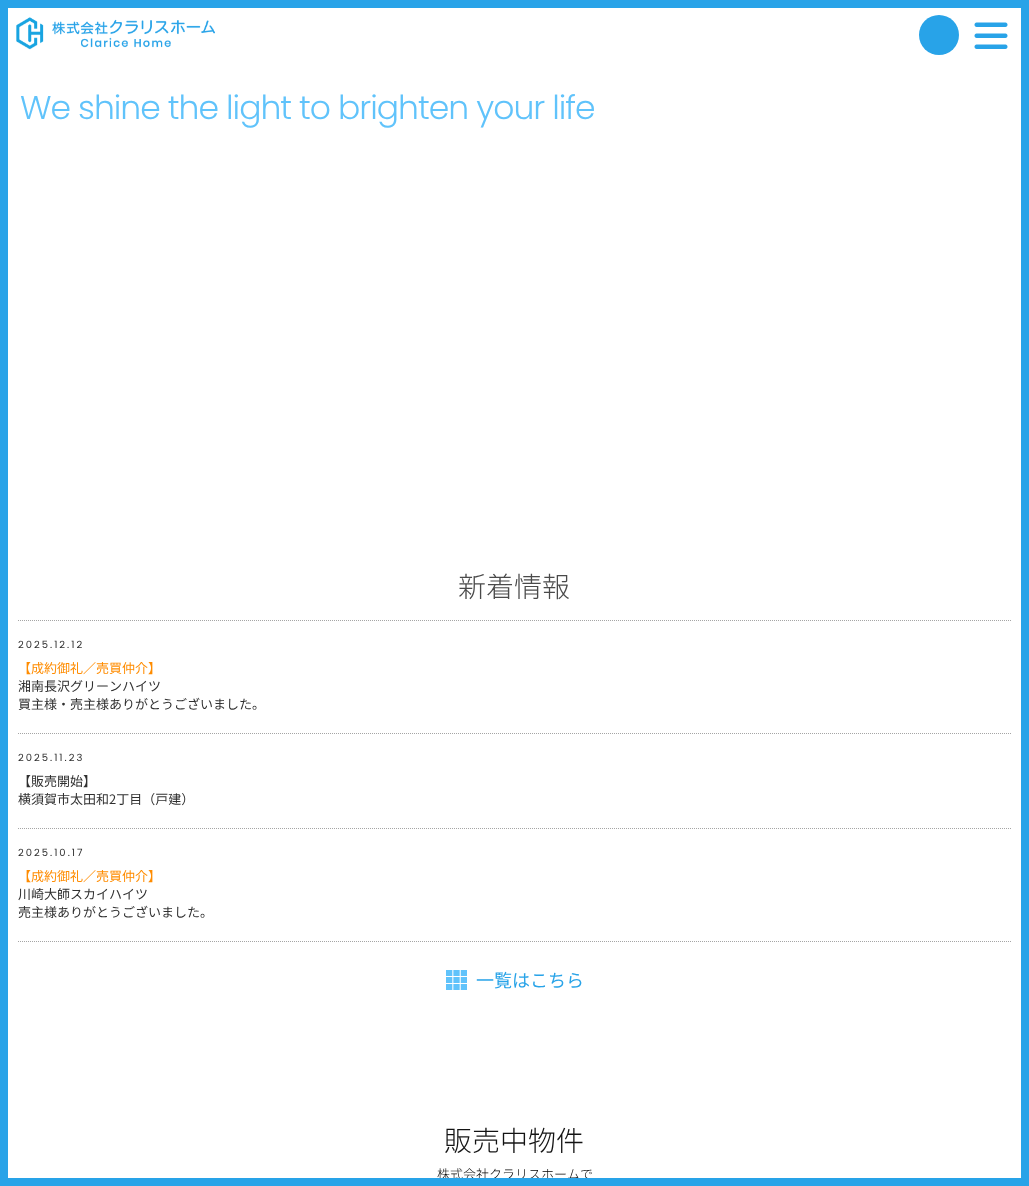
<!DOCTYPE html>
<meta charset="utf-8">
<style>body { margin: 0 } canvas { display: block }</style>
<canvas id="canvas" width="1029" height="1186"></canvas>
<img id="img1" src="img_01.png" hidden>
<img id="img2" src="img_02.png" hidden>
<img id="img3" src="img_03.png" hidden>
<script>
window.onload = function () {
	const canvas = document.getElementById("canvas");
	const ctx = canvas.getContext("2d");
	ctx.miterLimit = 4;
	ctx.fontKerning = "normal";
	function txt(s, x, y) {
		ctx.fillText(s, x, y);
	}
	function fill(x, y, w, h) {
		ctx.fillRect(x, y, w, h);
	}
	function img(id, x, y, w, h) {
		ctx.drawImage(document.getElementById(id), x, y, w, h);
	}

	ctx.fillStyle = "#FFFFFF";
	fill(0, 0, 1029, 1186);
	ctx.fillStyle = "#28A3E8";
	fill(0, 0, 1029, 8);
	fill(1021, 0, 8, 1186);
	img("img1", 16, 17, 199, 33);
	ctx.beginPath();
	ctx.arc(939, 35, 20, 0, Math.PI * 2);
	ctx.fill();
	img("img2", 974, 22, 34, 27);
	ctx.beginPath();
	ctx.moveTo(18, 620.5);
	ctx.lineTo(1011, 620.5);
	ctx.strokeStyle = "#A5A5A5";
	ctx.setLineDash([1, 1]);
	ctx.stroke();
	ctx.beginPath();
	ctx.moveTo(18, 733.5);
	ctx.lineTo(1011, 733.5);
	ctx.stroke();
	ctx.beginPath();
	ctx.moveTo(18, 828.5);
	ctx.lineTo(1011, 828.5);
	ctx.stroke();
	ctx.beginPath();
	ctx.moveTo(18, 941.5);
	ctx.lineTo(1011, 941.5);
	ctx.stroke();
	img("img3", 446, 970, 21, 20);
	ctx.letterSpacing = "-1px";
	ctx.font = "300 33px Poppins";
	ctx.fillStyle = "#60C3FB";
	txt("We shine the light to brighten your life", 20, 119);
	ctx.letterSpacing = "0px";
	ctx.font = "300 28px Noto Sans JP";
	ctx.fillStyle = "#4A4A4A";
	txt("新着情報", 458, 597);
	ctx.letterSpacing = "2px";
	ctx.font = "10px Poppins";
	ctx.fillStyle = "#303030";
	txt("2025.12.12", 18, 648);
	ctx.letterSpacing = "0px";
	ctx.font = "13px Noto Sans JP";
	ctx.fillStyle = "#FF8C00";
	txt("【成約御礼／売買仲介】", 18, 673);
	ctx.fillStyle = "#303030";
	txt("湘南長沢グリーンハイツ", 18, 691);
	txt("買主様・売主様ありがとうございました。", 18, 709);
	ctx.letterSpacing = "2px";
	ctx.font = "10px Poppins";
	txt("2025.11.23", 18, 761);
	ctx.letterSpacing = "0px";
	ctx.font = "13px Noto Sans JP";
	txt("【販売開始】", 18, 786);
	txt("横須賀市太田和2丁目（戸建）", 18, 804);
	ctx.letterSpacing = "2px";
	ctx.font = "10px Poppins";
	txt("2025.10.17", 18, 856);
	ctx.letterSpacing = "0px";
	ctx.font = "13px Noto Sans JP";
	ctx.fillStyle = "#FF8C00";
	txt("【成約御礼／売買仲介】", 18, 881);
	ctx.fillStyle = "#303030";
	txt("川崎大師スカイハイツ", 18, 899);
	txt("売主様ありがとうございました。", 18, 917);
	ctx.font = "18px Noto Sans JP";
	ctx.fillStyle = "#28A3E8";
	txt("一覧はこちら", 476, 987);
	ctx.font = "300 28px Noto Sans JP";
	ctx.fillStyle = "#131313";
	txt("販売中物件", 444, 1151);
	ctx.font = "300 13px Noto Sans JP";
	ctx.fillStyle = "#000000";
	txt("株式会社クラリスホームで", 437, 1179);
	ctx.fillStyle = "#28A3E8";
	fill(0, 1178, 1029, 8);
	fill(0, 0, 8, 1186);
};
</script>
